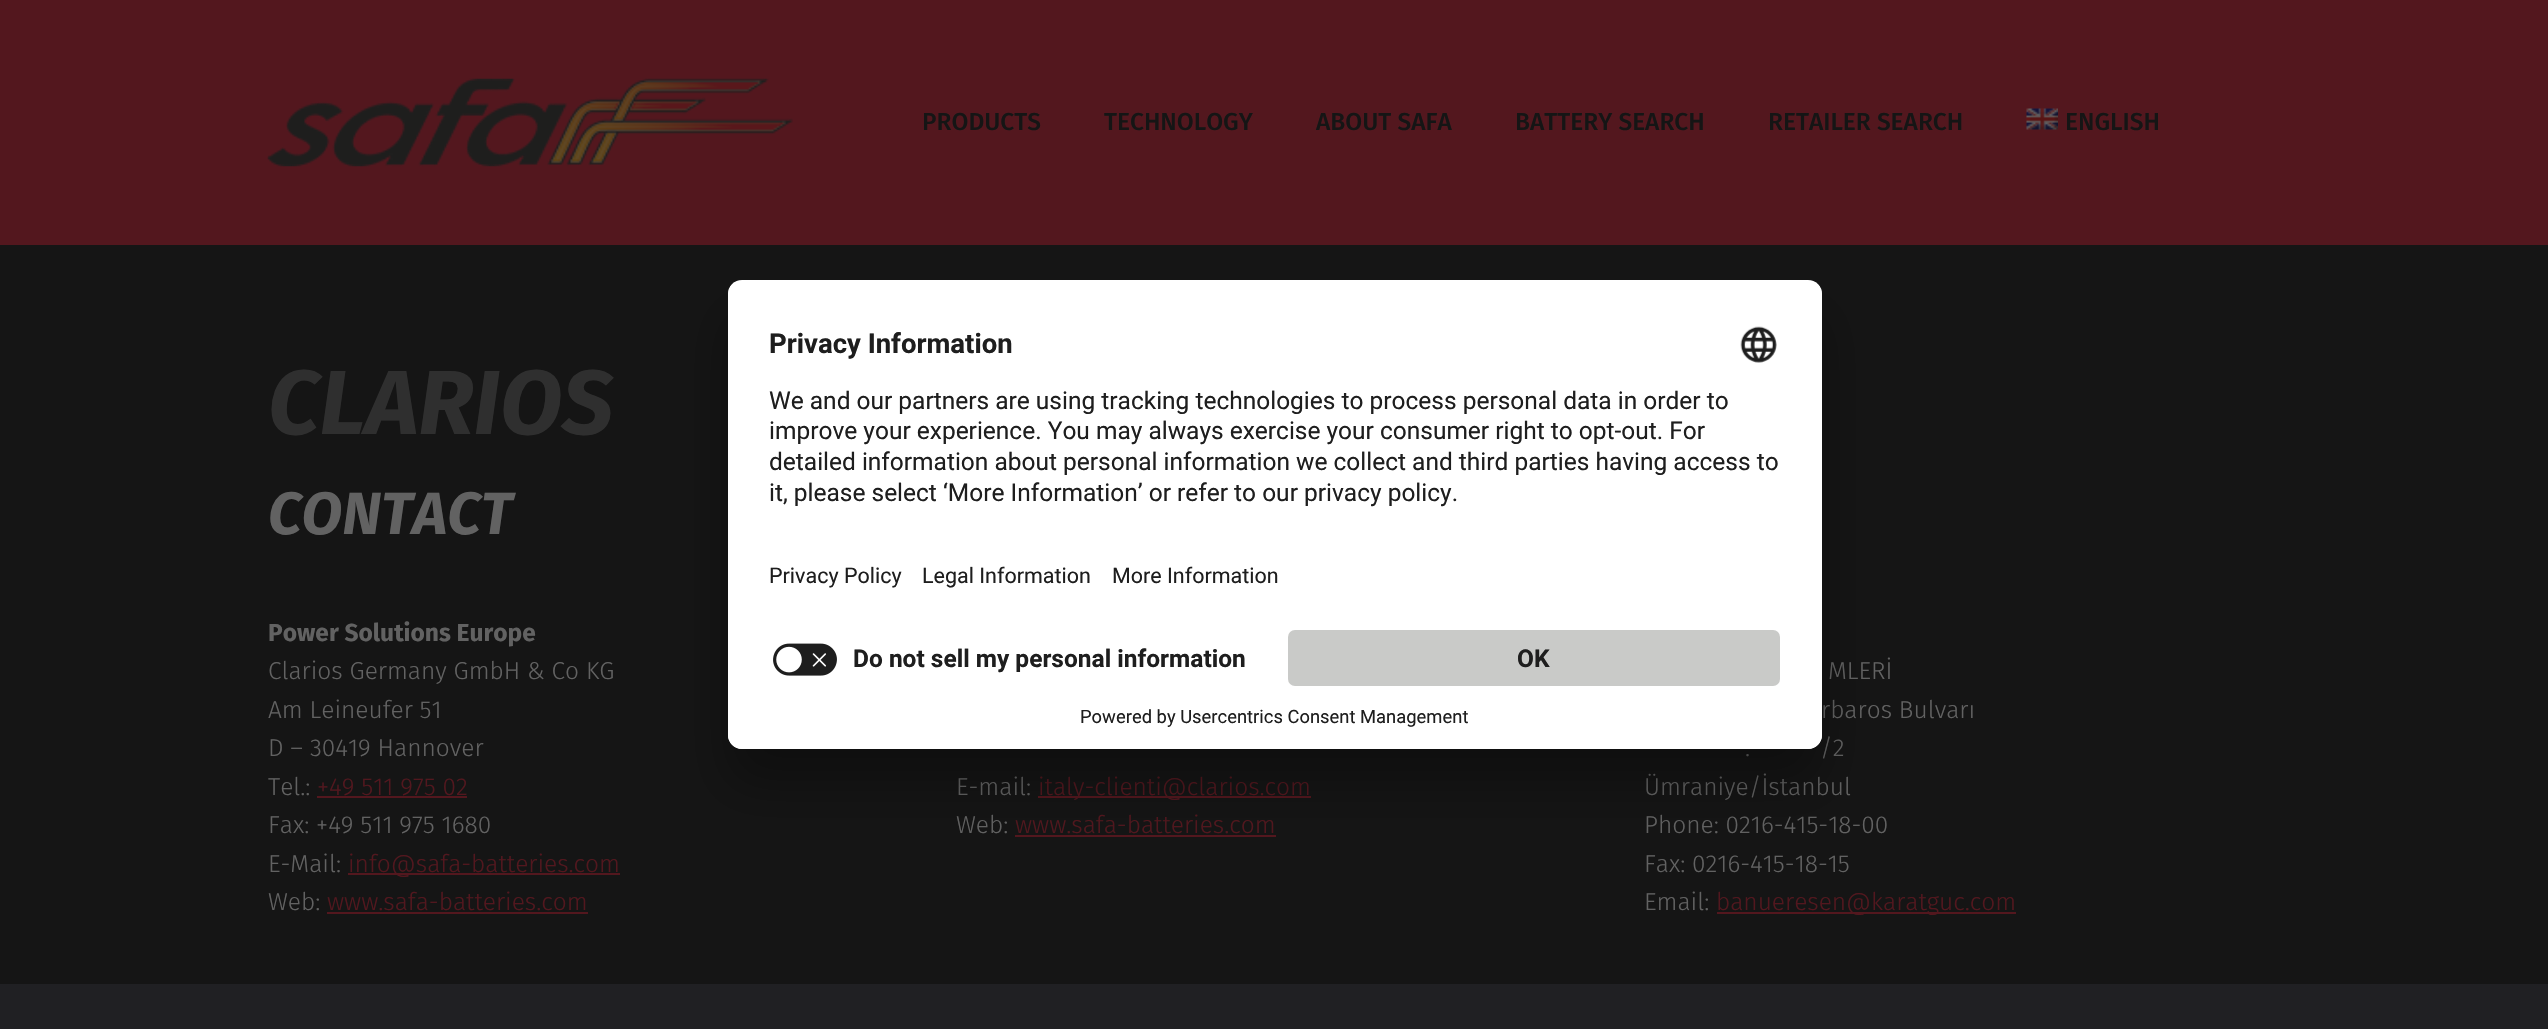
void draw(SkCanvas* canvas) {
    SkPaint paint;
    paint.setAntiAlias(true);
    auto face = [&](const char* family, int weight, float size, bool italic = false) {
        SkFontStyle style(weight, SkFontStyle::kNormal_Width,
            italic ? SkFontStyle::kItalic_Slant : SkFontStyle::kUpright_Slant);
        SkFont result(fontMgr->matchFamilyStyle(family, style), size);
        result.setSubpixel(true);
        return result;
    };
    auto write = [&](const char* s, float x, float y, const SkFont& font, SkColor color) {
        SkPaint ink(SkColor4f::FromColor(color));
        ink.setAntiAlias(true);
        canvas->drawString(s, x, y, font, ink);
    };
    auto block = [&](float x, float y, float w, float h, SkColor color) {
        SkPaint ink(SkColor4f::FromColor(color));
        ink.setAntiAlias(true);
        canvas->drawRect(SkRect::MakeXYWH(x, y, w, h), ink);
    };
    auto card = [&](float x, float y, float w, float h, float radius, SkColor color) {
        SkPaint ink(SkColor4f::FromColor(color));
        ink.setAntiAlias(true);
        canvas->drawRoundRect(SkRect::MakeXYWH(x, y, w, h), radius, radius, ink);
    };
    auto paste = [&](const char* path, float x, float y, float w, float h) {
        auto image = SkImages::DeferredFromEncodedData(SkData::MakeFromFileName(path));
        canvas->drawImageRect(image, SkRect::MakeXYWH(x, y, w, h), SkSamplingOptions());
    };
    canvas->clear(SkColorSetRGB(21, 21, 21));
    block(0, 0, 2548, 245, SkColorSetRGB(83, 23, 30));
    paste("pic1.png", 267, 78, 526, 89);
    auto kFont1 = face("Fira Sans", 500, 24.5f);
    write("PRODUCTS", 922, 130, kFont1, SkColorSetRGB(21, 21, 21));
    write("TECHNOLOGY", 1104, 130, kFont1, SkColorSetRGB(21, 21, 21));
    write("ABOUT SAFA", 1316, 130, kFont1, SkColorSetRGB(21, 21, 21));
    write("BATTERY SEARCH", 1515, 130, kFont1, SkColorSetRGB(21, 21, 21));
    write("RETAILER SEARCH", 1768, 130, kFont1, SkColorSetRGB(21, 21, 21));
    paste("pic2.png", 2026, 108, 32, 22);
    write("ENGLISH", 2065, 130, kFont1, SkColorSetRGB(21, 21, 21));
    auto kFont2 = face("Fira Sans", 700, 91, true);
    write("CLARIOS", 268, 434, kFont2, SkColorSetRGB(47, 47, 47));
    auto kFont3 = face("Fira Sans", 700, 59.5f, true);
    write("CONTACT", 268, 534, kFont3, SkColorSetRGB(98, 98, 98));
    auto kFont4 = face("Fira Sans", 700, 24.5f);
    write("Power Solutions Europe", 268, 641, kFont4, SkColorSetRGB(98, 98, 98));
    auto kFont5 = face("Fira Sans", 300, 24.5f);
    write("Clarios Germany GmbH & Co KG", 268, 679, kFont5, SkColorSetRGB(98, 98, 98));
    write("Am Leineufer 51", 268, 718, kFont5, SkColorSetRGB(98, 98, 98));
    write("D – 30419 Hannover", 268, 756, kFont5, SkColorSetRGB(98, 98, 98));
    write("Tel.:", 268, 795, kFont5, SkColorSetRGB(98, 98, 98));
    write("+49 511 975 02", 317, 795, kFont5, SkColorSetRGB(83, 23, 30));
    block(317, 796, 150, 2, SkColorSetRGB(83, 23, 30));
    write("Fax: +49 511 975 1680", 268, 833, kFont5, SkColorSetRGB(98, 98, 98));
    write("E-Mail:", 268, 872, kFont5, SkColorSetRGB(98, 98, 98));
    block(348, 873, 272, 2, SkColorSetRGB(83, 23, 30));
    write("info@safa-batteries.com", 348, 872, kFont5, SkColorSetRGB(83, 23, 30));
    write("Web:", 268, 910, kFont5, SkColorSetRGB(98, 98, 98));
    write("www.safa-batteries.com", 327, 910, kFont5, SkColorSetRGB(83, 23, 30));
    block(327, 912, 261, 2, SkColorSetRGB(83, 23, 30));
    write("E-mail:", 956, 795, kFont5, SkColorSetRGB(98, 98, 98));
    block(1038, 796, 273, 2, SkColorSetRGB(83, 23, 30));
    write("italy-clienti@clarios.com", 1038, 795, kFont5, SkColorSetRGB(83, 23, 30));
    write("Web:", 956, 833, kFont5, SkColorSetRGB(98, 98, 98));
    write("www.safa-batteries.com", 1015, 833, kFont5, SkColorSetRGB(83, 23, 30));
    block(1015, 835, 261, 2, SkColorSetRGB(83, 23, 30));
    write("MLERİ", 1828, 679, kFont5, SkColorSetRGB(98, 98, 98));
    write("rbaros Bulvarı", 1821, 718, kFont5, SkColorSetRGB(98, 98, 98));
    write(".", 1745, 756, kFont5, SkColorSetRGB(98, 98, 98));
    write("/2", 1820, 756, kFont5, SkColorSetRGB(98, 98, 98));
    write("Ümraniye/İstanbul", 1644, 795, kFont5, SkColorSetRGB(98, 98, 98));
    write("Phone: 0216-415-18-00", 1644, 833, kFont5, SkColorSetRGB(98, 98, 98));
    write("Fax: 0216-415-18-15", 1644, 872, kFont5, SkColorSetRGB(98, 98, 98));
    write("Email:", 1644, 910, kFont5, SkColorSetRGB(98, 98, 98));
    block(1717, 912, 299, 2, SkColorSetRGB(83, 23, 30));
    write("banueresen@karatguc.com", 1716, 910, kFont5, SkColorSetRGB(83, 23, 30));
    block(0, 984, 2548, 45, SkColorSetRGB(32, 32, 35));
    paint.setColor(SkColorSetARGB(77, 0, 0, 0));
    paint.setMaskFilter(SkMaskFilter::MakeBlur(kNormal_SkBlurStyle, 24.5f));
    canvas->drawRoundRect(SkRect::MakeXYWH(728, 315, 1094, 469), 14, 14, paint);
    paint.setMaskFilter(nullptr);
    card(728, 280, 1094, 469, 14, SK_ColorWHITE);
    canvas->save();
    canvas->clipPath(SkPathBuilder().moveTo(742, 280).lineTo(1808, 280).cubicTo(1815.5f, 280, 1822, 286.5f, 1822, 294).lineTo(1822, 735).cubicTo(1822, 742.5f, 1815.5f, 749, 1808, 749).lineTo(742, 749).cubicTo(734.5f, 749, 728, 742.5f, 728, 735).lineTo(728, 294).cubicTo(728, 286.5f, 734.5f, 280, 742, 280).close().detach(), true);
    canvas->clipPath(SkPathBuilder().moveTo(742, 280).lineTo(1808, 280).cubicTo(1815.5f, 280, 1822, 286.5f, 1822, 294).lineTo(1822, 616).lineTo(728, 616).lineTo(728, 294).cubicTo(728, 286.5f, 734.5f, 280, 742, 280).close().detach(), true);
    block(728, 282, 1094, 334, SK_ColorWHITE);
    canvas->restore();
    auto kFont6 = face("Roboto", 700, 27.5f);
    write("Privacy Information", 769, 353, kFont6, SkColorSetRGB(30, 30, 30));
    paste("pic3.png", 1740, 326, 37, 37);
    auto kFont7 = face("Roboto", 400, 24.5f);
    write("We and our partners are using tracking technologies to process personal data in order to", 769, 409, kFont7, SkColorSetRGB(30, 30, 30));
    write("improve your experience. You may always exercise your consumer right to opt-out. For", 769, 439, kFont7, SkColorSetRGB(30, 30, 30));
    write("detailed information about personal information we collect and third parties having access to", 769, 470, kFont7, SkColorSetRGB(30, 30, 30));
    write("it, please select ‘More Information’ or refer to our privacy policy.", 769, 501, kFont7, SkColorSetRGB(30, 30, 30));
    auto kFont8 = face("Roboto", 400, 21.5f);
    write("Privacy Policy", 769, 583, kFont8, SkColorSetRGB(30, 30, 30));
    write("Legal Information", 922, 583, kFont8, SkColorSetRGB(30, 30, 30));
    write("More Information", 1112, 583, kFont8, SkColorSetRGB(30, 30, 30));
    paint.setColor(SK_ColorWHITE);
    canvas->drawPath(SkPathBuilder().moveTo(728, 616).lineTo(1822, 616).lineTo(1822, 735).cubicTo(1822, 742.5f, 1815.5f, 749, 1808, 749).lineTo(742, 749).cubicTo(734.5f, 749, 728, 742.5f, 728, 735).close().detach(), paint);
    paste("pic4.png", 773, 643, 64, 33);
    auto kFont9 = face("Roboto", 700, 24.5f);
    write("Do not sell my personal information", 853, 667, kFont9, SkColorSetRGB(30, 30, 30));
    card(1288, 630, 492, 56, 7, SkColorSetRGB(201, 202, 200));
    write("OK", 1517, 667, kFont9, SkColorSetRGB(30, 30, 30));
    auto kFont10 = face("Roboto", 400, 18.4f);
    write("Powered by Usercentrics Consent Management", 1080, 723, kFont10, SkColorSetRGB(30, 30, 30));
}
